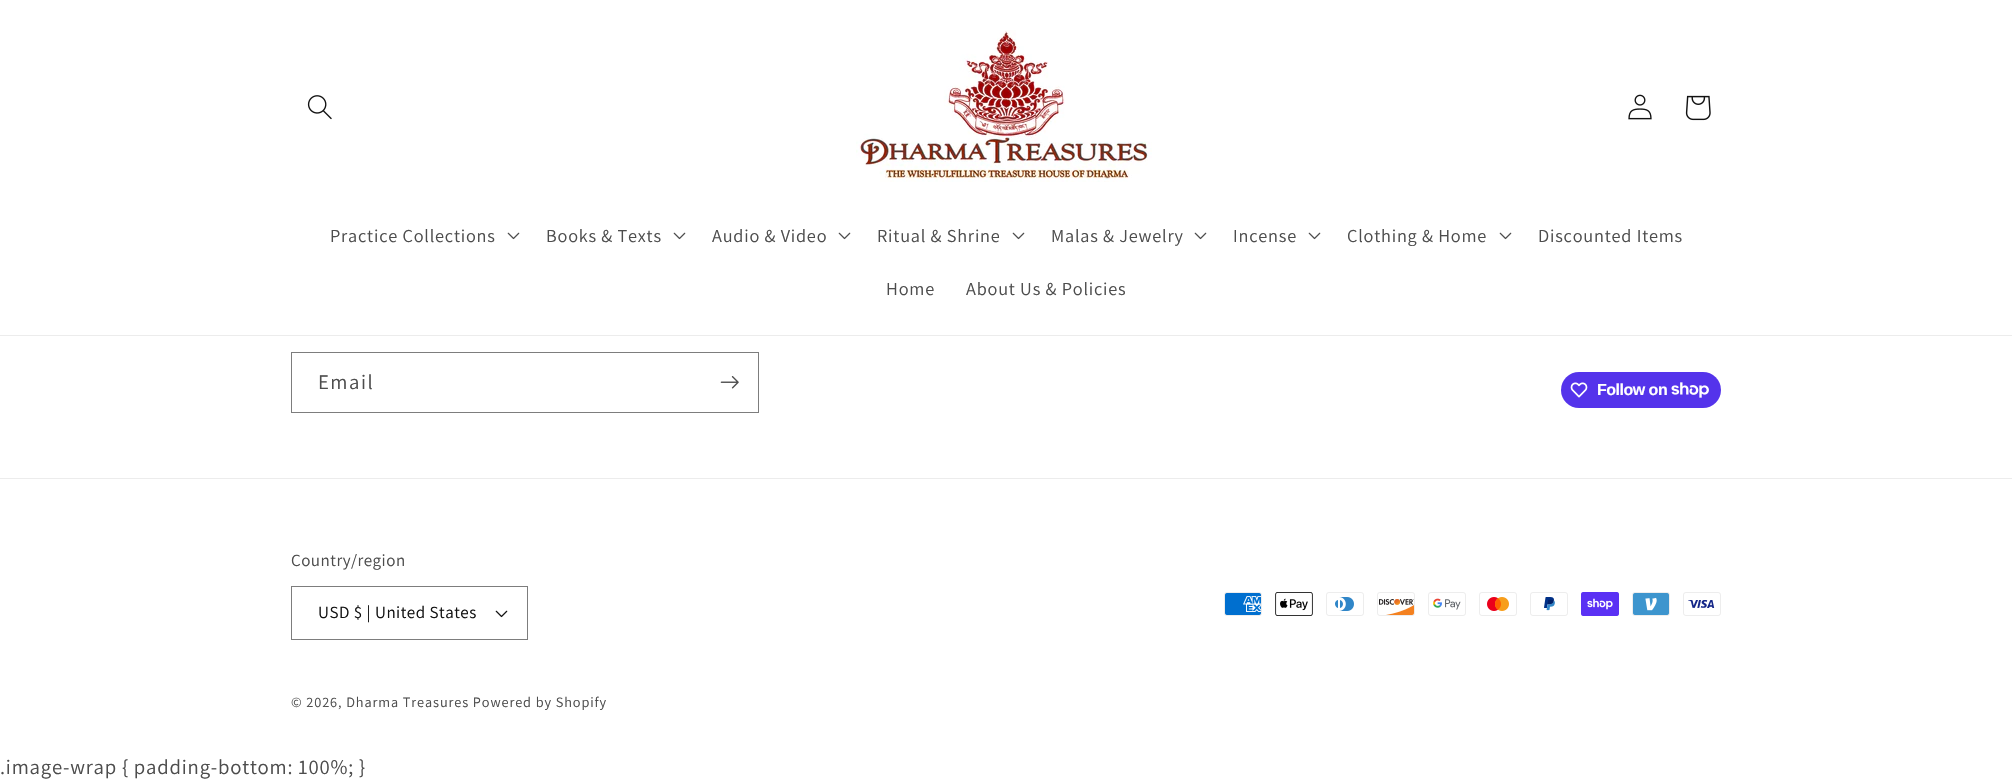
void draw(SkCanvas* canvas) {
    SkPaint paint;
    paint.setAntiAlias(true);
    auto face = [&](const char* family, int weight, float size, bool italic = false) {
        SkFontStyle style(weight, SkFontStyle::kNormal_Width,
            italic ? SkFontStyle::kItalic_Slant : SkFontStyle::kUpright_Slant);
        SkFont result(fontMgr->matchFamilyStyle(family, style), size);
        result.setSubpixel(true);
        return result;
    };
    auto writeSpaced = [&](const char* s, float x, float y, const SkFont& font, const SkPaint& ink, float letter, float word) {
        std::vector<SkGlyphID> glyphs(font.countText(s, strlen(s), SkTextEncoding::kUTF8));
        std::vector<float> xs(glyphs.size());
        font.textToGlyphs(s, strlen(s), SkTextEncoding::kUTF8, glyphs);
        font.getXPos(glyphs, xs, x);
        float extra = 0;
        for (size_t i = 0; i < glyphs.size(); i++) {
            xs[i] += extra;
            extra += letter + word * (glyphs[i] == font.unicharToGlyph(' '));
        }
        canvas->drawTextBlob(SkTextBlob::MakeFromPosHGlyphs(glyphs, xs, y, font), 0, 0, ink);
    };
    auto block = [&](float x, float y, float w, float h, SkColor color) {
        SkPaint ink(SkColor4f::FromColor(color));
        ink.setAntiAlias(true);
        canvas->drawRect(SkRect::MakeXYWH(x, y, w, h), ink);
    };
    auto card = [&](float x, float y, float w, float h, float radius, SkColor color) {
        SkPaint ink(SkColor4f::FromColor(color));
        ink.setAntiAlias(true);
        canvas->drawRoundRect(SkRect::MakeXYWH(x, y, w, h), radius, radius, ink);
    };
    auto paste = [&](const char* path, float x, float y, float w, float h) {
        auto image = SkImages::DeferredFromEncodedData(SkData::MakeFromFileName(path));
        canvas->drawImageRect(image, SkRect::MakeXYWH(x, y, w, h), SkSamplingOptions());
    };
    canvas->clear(SK_ColorWHITE);
    block(0, 335, 2012, 1, SkColorSetRGB(236, 236, 236));
    paste("pic1.png", 307, 95, 25, 25);
    paste("pic2.png", 856, 30, 296, 152);
    paste("pic3.png", 1628, 94, 24, 26);
    paste("pic4.png", 1685, 95, 26, 26);
    auto kFont1 = face("Assistant", 400, 18.25f);
    paint.setColor(SkColorSetRGB(77, 77, 77));
    writeSpaced("Practice Collections", 330, 242, kFont1, paint, 0.8f, 0);
    paste("pic5.png", 507, 232, 13, 8);
    writeSpaced("Books & Texts", 546, 242, kFont1, paint, 0.8f, 0);
    paste("pic5.png", 673, 232, 13, 8);
    writeSpaced("Audio & Video", 712, 242, kFont1, paint, 0.8f, 0);
    paste("pic5.png", 838, 232, 13, 8);
    writeSpaced("Ritual & Shrine", 877, 242, kFont1, paint, 0.8f, 0);
    paste("pic5.png", 1012, 232, 13, 8);
    writeSpaced("Malas & Jewelry", 1051, 242, kFont1, paint, 0.8f, 0);
    paste("pic5.png", 1194, 232, 13, 8);
    writeSpaced("Incense", 1233, 242, kFont1, paint, 0.8f, 0);
    paste("pic5.png", 1308, 232, 13, 8);
    writeSpaced("Clothing & Home", 1347, 242, kFont1, paint, 0.8f, 0);
    paste("pic5.png", 1499, 232, 13, 8);
    writeSpaced("Discounted Items", 1538, 242, kFont1, paint, 0.8f, 0);
    writeSpaced("Home", 886, 295, kFont1, paint, 0.8f, 0);
    writeSpaced("About Us & Policies", 966, 295, kFont1, paint, 0.8f, 0);
    paint.setStyle(SkPaint::kStroke_Style);
    paint.setStrokeWidth(1);
    paint.setColor(SkColorSetRGB(125, 125, 125));
    canvas->drawRect(SkRect::MakeXYWH(291.5f, 352.5f, 467, 60), paint);
    auto kFont2 = face("Assistant", 400, 20.75f);
    paint.setStyle(SkPaint::kFill_Style);
    paint.setColor(SkColorSetRGB(77, 77, 77));
    writeSpaced("Email", 318, 389, kFont2, paint, 1.5f, 0);
    paste("pic6.png", 720, 376, 19, 13);
    card(1561, 372, 160, 36, 18, SkColorSetRGB(84, 51, 235));
    paste("pic7.png", 1570, 382, 18, 16);
    auto kFont3 = face("Liberation Sans", 700, 16);
    paint.setColor(SK_ColorWHITE);
    writeSpaced("Follow on", 1597, 395, kFont3, paint, -0.5f, 0);
    paste("pic8.png", 1671, 382, 38, 16);
    block(0, 478, 2012, 1, SkColorSetRGB(236, 236, 236));
    auto kFont4 = face("Assistant", 400, 17);
    paint.setColor(SkColorSetRGB(77, 77, 77));
    writeSpaced("Country/region", 291, 566, kFont4, paint, 0.5f, 0);
    paste("pic9.png", 495, 610, 13, 8);
    paint.setStyle(SkPaint::kStroke_Style);
    paint.setColor(SkColorSetRGB(125, 125, 125));
    canvas->drawRect(SkRect::MakeXYWH(291.5f, 586.5f, 236, 53), paint);
    paint.setStyle(SkPaint::kFill_Style);
    paint.setColor(SkColorSetRGB(18, 18, 18));
    writeSpaced("USD $ | United States", 318, 618, kFont4, paint, 0.5f, 0);
    paste("pic10.png", 1224, 592, 38, 24);
    paste("pic11.png", 1275, 592, 38, 24);
    paste("pic12.png", 1326, 592, 38, 24);
    paste("pic13.png", 1377, 592, 38, 24);
    paste("pic14.png", 1428, 592, 38, 24);
    paste("pic15.png", 1479, 592, 38, 24);
    paste("pic16.png", 1530, 592, 38, 24);
    paste("pic17.png", 1581, 592, 38, 24);
    paste("pic18.png", 1632, 592, 38, 24);
    paste("pic19.png", 1683, 592, 38, 24);
    auto kFont5 = face("Assistant", 400, 14.3f);
    paint.setColor(SkColorSetRGB(77, 77, 77));
    writeSpaced("© 2026, Dharma Treasures Powered by Shopify", 291, 707, kFont5, paint, 0.9f, 0);
    writeSpaced(".image-wrap { padding-bottom: 100%; }", 0, 774, kFont2, paint, 0.8f, 0);
}
